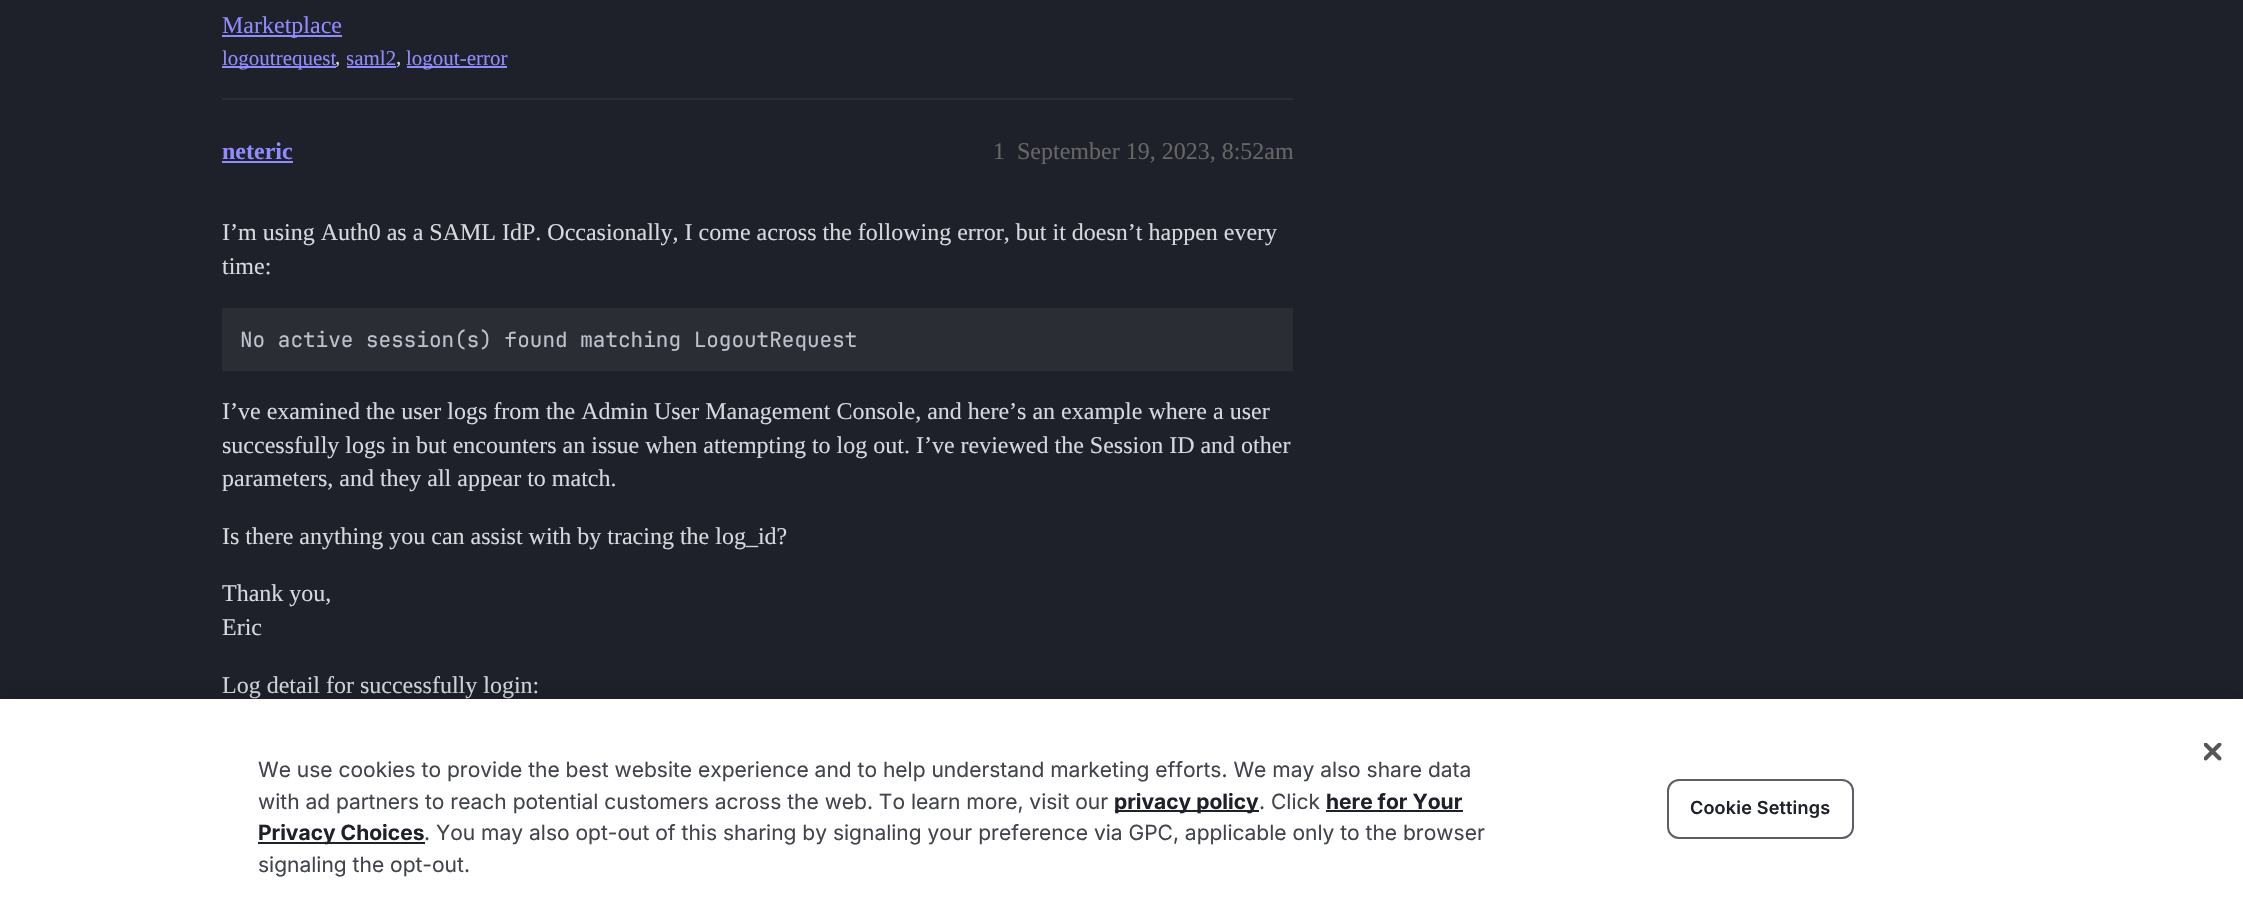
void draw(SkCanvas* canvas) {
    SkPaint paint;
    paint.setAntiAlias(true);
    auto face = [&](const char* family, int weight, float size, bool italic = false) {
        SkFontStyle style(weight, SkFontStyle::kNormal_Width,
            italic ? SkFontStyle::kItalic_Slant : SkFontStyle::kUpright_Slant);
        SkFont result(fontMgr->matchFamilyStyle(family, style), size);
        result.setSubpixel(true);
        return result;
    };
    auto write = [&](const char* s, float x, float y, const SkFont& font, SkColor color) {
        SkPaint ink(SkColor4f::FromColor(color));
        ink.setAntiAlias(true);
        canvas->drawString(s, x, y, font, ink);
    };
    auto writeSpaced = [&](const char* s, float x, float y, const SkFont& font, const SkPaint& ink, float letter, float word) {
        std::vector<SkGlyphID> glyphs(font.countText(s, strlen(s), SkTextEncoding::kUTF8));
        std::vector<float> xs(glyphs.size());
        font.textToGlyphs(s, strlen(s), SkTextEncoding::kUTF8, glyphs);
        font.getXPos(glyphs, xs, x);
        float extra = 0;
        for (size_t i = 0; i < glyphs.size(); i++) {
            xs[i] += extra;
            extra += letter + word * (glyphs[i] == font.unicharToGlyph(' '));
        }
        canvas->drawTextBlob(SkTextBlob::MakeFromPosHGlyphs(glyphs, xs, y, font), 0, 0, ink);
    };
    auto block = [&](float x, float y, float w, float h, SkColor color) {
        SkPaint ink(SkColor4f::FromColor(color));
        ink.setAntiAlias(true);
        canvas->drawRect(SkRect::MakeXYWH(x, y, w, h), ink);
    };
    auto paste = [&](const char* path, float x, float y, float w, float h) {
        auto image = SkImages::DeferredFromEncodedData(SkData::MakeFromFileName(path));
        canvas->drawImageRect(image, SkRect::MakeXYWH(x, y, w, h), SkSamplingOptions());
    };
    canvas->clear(SkColorSetRGB(30, 33, 42));
    block(222, 35, 120, 2, SkColorSetRGB(144, 139, 255));
    auto kFont1 = face("Liberation Serif", 400, 24);
    write("Marketplace", 222, 33, kFont1, SkColorSetRGB(144, 139, 255));
    block(222, 66, 114, 2, SkColorSetRGB(144, 139, 255));
    auto kFont2 = face("Liberation Serif", 400, 21);
    write("logoutrequest", 222, 65, kFont2, SkColorSetRGB(144, 139, 255));
    write(",", 335, 64, kFont2, SkColorSetRGB(214, 216, 222));
    canvas->save();
    canvas->clipRect(SkRect::MakeXYWH(347, 44, 49, 30));
    write("saml2", 346, 65, kFont2, SkColorSetRGB(144, 139, 255));
    canvas->restore();
    block(347, 66, 49, 2, SkColorSetRGB(144, 139, 255));
    write(",", 396, 64, kFont2, SkColorSetRGB(214, 216, 222));
    block(407, 66, 100, 2, SkColorSetRGB(144, 139, 255));
    write("logout-error", 406, 65, kFont2, SkColorSetRGB(144, 139, 255));
    block(222, 98, 1071, 2, SkColorSetRGB(43, 45, 53));
    auto kFont3 = face("Liberation Serif", 700, 24);
    write("neteric", 222, 159, kFont3, SkColorSetRGB(144, 139, 255));
    block(222, 161, 71, 2, SkColorSetRGB(144, 139, 255));
    write("1", 993, 159, kFont1, SkColorSetRGB(102, 102, 102));
    write("September 19, 2023, 8:52am", 1017, 159, kFont1, SkColorSetRGB(102, 102, 102));
    write("I’m using Auth0 as a SAML IdP. Occasionally, I come across the following error, but it doesn’t happen every", 222, 240, kFont1, SkColorSetRGB(214, 216, 222));
    write("time:", 222, 274, kFont1, SkColorSetRGB(214, 216, 222));
    block(222, 308, 1071, 63, SkColorSetRGB(43, 45, 53));
    auto kFont4 = face("JetBrains Mono", 400, 21);
    write("No active session(s) found matching LogoutRequest", 240, 347, kFont4, SkColorSetRGB(190, 193, 203));
    write("I’ve examined the user logs from the Admin User Management Console, and here’s an example where a user", 222, 419, kFont1, SkColorSetRGB(214, 216, 222));
    write("successfully logs in but encounters an issue when attempting to log out. I’ve reviewed the Session ID and other", 222, 453, kFont1, SkColorSetRGB(214, 216, 222));
    write("parameters, and they all appear to match.", 222, 486, kFont1, SkColorSetRGB(214, 216, 222));
    write("Is there anything you can assist with by tracing the log_id?", 222, 544, kFont1, SkColorSetRGB(214, 216, 222));
    write("Thank you,", 222, 601, kFont1, SkColorSetRGB(214, 216, 222));
    write("Eric", 222, 635, kFont1, SkColorSetRGB(214, 216, 222));
    write("Log detail for successfully login:", 222, 693, kFont1, SkColorSetRGB(214, 216, 222));
    paint.setColor(SkColorSetARGB(51, 0, 0, 0));
    paint.setMaskFilter(SkMaskFilter::MakeBlur(kNormal_SkBlurStyle, 13.5f));
    canvas->drawRect(SkRect::MakeXYWH(0, 699, 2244, 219), paint);
    paint.setMaskFilter(nullptr);
    block(0, 699, 2243, 218, SK_ColorWHITE);
    paste("pic1.png", 2204, 743, 18, 18);
    auto kFont5 = face("Inter", 400, 21);
    write("We use cookies to provide the best website experience and to help understand marketing efforts. We may also share data", 258, 777, kFont5, SkColorSetRGB(65, 68, 75));
    write("with ad partners to reach potential customers across the web. To learn more, visit our", 258, 809, kFont5, SkColorSetRGB(65, 68, 75));
    block(1115, 810, 144, 2, SkColorSetRGB(30, 33, 42));
    auto kFont6 = face("Inter", 700, 21);
    write("privacy policy", 1114, 809, kFont6, SkColorSetRGB(30, 33, 42));
    write(". Click", 1259, 809, kFont5, SkColorSetRGB(65, 68, 75));
    write("here for Your", 1326, 809, kFont6, SkColorSetRGB(30, 33, 42));
    block(1326, 810, 137, 2, SkColorSetRGB(30, 33, 42));
    block(258, 842, 167, 2, SkColorSetRGB(30, 33, 42));
    write("Privacy Choices", 258, 840, kFont6, SkColorSetRGB(30, 33, 42));
    write(". You may also opt-out of this sharing by signaling your preference via GPC, applicable only to the browser", 424, 840, kFont5, SkColorSetRGB(65, 68, 75));
    write("signaling the opt-out.", 258, 872, kFont5, SkColorSetRGB(65, 68, 75));
    paint.setStyle(SkPaint::kStroke_Style);
    paint.setStrokeWidth(2);
    paint.setColor(SkColorSetRGB(90, 95, 102));
    canvas->drawRoundRect(SkRect::MakeXYWH(1668, 780, 185, 58), 11, 11, paint);
    auto kFont7 = face("Inter", 600, 18);
    paint.setStyle(SkPaint::kFill_Style);
    paint.setColor(SkColorSetRGB(30, 33, 42));
    writeSpaced("Cookie Settings", 1690, 814, kFont7, paint, 0.2f, 0);
}
